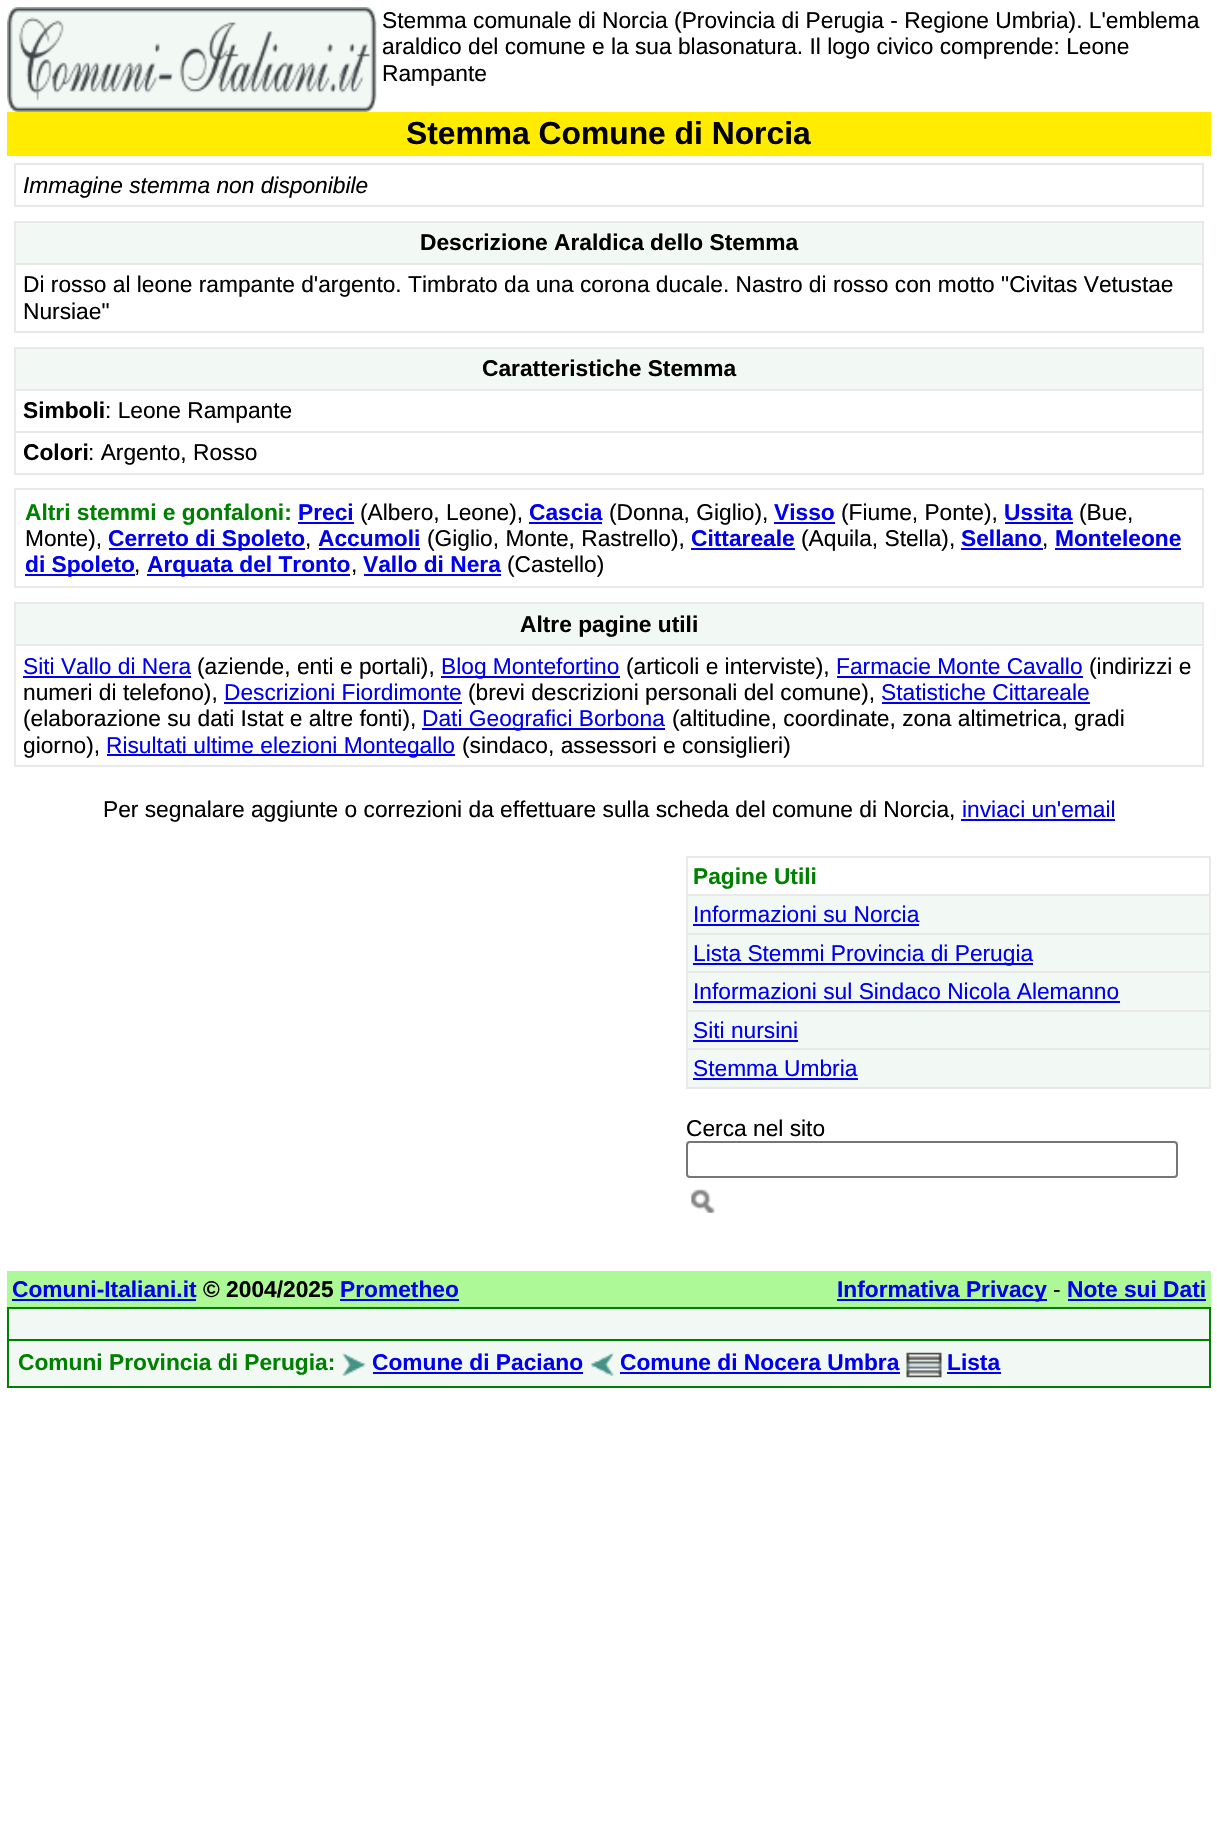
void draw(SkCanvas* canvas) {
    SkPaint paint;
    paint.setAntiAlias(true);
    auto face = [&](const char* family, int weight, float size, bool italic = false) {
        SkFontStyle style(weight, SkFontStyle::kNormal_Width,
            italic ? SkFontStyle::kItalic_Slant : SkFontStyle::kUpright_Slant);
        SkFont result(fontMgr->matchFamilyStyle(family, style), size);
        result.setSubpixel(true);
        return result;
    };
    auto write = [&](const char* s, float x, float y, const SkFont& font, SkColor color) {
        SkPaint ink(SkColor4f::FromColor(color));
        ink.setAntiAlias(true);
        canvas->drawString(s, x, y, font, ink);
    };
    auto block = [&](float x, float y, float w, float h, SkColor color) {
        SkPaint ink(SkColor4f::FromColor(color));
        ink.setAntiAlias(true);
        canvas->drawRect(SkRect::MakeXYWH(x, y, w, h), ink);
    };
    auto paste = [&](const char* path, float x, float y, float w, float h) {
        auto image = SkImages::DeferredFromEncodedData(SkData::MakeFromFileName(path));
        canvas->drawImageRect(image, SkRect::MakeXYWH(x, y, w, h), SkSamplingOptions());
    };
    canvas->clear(SK_ColorWHITE);
    paste("pic1.png", 7, 7, 370, 105);
    auto kFont1 = face("Liberation Sans", 400, 22.75f);
    write("Stemma comunale di Norcia (Provincia di Perugia - Regione Umbria). L'emblema", 382, 28, kFont1, SK_ColorBLACK);
    write("araldico del comune e la sua blasonatura. Il logo civico comprende: Leone", 382, 54, kFont1, SK_ColorBLACK);
    write("Rampante", 382, 81, kFont1, SK_ColorBLACK);
    block(7, 112, 1204, 44, SkColorSetRGB(255, 236, 0));
    auto kFont2 = face("Liberation Sans", 700, 31.8f);
    write("Stemma Comune di Norcia", 406, 144, kFont2, SK_ColorBLACK);
    block(14, 163, 1190, 2, SkColorSetRGB(233, 233, 233));
    block(1202, 163, 2, 44, SkColorSetRGB(233, 233, 233));
    block(14, 205, 1190, 2, SkColorSetRGB(233, 233, 233));
    block(14, 163, 2, 44, SkColorSetRGB(233, 233, 233));
    auto kFont3 = face("Liberation Sans", 400, 22.75f, true);
    write("Immagine stemma non disponibile", 23, 193, kFont3, SK_ColorBLACK);
    block(14, 221, 1190, 2, SkColorSetRGB(233, 233, 233));
    block(1202, 221, 2, 112, SkColorSetRGB(233, 233, 233));
    block(14, 331, 1190, 2, SkColorSetRGB(233, 233, 233));
    block(14, 221, 2, 112, SkColorSetRGB(233, 233, 233));
    block(16, 223, 1186, 40, SkColorSetRGB(242, 248, 244));
    auto kFont4 = face("Liberation Sans", 700, 22.75f);
    write("Descrizione Araldica dello Stemma", 420, 250, kFont4, SK_ColorBLACK);
    block(14, 263, 1190, 2, SkColorSetRGB(233, 233, 233));
    write("Di rosso al leone rampante d'argento. Timbrato da una corona ducale. Nastro di rosso con motto \"Civitas Vetustae", 23, 292, kFont1, SK_ColorBLACK);
    write("Nursiae\"", 23, 319, kFont1, SK_ColorBLACK);
    block(14, 347, 1190, 2, SkColorSetRGB(233, 233, 233));
    block(1202, 347, 2, 127, SkColorSetRGB(233, 233, 233));
    block(14, 473, 1190, 2, SkColorSetRGB(233, 233, 233));
    block(14, 347, 2, 127, SkColorSetRGB(233, 233, 233));
    block(16, 349, 1186, 40, SkColorSetRGB(242, 248, 244));
    write("Caratteristiche Stemma", 482, 376, kFont4, SK_ColorBLACK);
    block(14, 389, 1190, 2, SkColorSetRGB(233, 233, 233));
    write("Simboli", 23, 418, kFont4, SK_ColorBLACK);
    write(": Leone Rampante", 105, 418, kFont1, SK_ColorBLACK);
    block(14, 431, 1190, 2, SkColorSetRGB(233, 233, 233));
    write("Colori", 23, 460, kFont4, SK_ColorBLACK);
    write(": Argento, Rosso", 88, 460, kFont1, SK_ColorBLACK);
    block(14, 488, 1190, 2, SkColorSetRGB(233, 233, 233));
    block(1202, 488, 2, 100, SkColorSetRGB(233, 233, 233));
    block(14, 586, 1190, 2, SkColorSetRGB(233, 233, 233));
    block(14, 488, 2, 100, SkColorSetRGB(233, 233, 233));
    write("Altri stemmi e gonfaloni:", 25, 520, kFont4, SkColorSetRGB(0, 128, 0));
    write("Preci", 298, 520, kFont4, SkColorSetRGB(0, 0, 238));
    block(298, 522, 56, 2, SkColorSetRGB(0, 0, 238));
    write("(Albero, Leone),", 360, 520, kFont1, SK_ColorBLACK);
    write("Cascia", 529, 520, kFont4, SkColorSetRGB(0, 0, 238));
    block(529, 522, 73, 2, SkColorSetRGB(0, 0, 238));
    write("(Donna, Giglio),", 609, 520, kFont1, SK_ColorBLACK);
    write("Visso", 774, 520, kFont4, SkColorSetRGB(0, 0, 238));
    block(774, 522, 61, 2, SkColorSetRGB(0, 0, 238));
    write("(Fiume, Ponte),", 841, 520, kFont1, SK_ColorBLACK);
    write("Ussita", 1004, 520, kFont4, SkColorSetRGB(0, 0, 238));
    block(1005, 522, 68, 2, SkColorSetRGB(0, 0, 238));
    write("(Bue,", 1079, 520, kFont1, SK_ColorBLACK);
    write("Monte),", 25, 546, kFont1, SK_ColorBLACK);
    block(109, 548, 196, 2, SkColorSetRGB(0, 0, 238));
    write("Cerreto di Spoleto", 108, 546, kFont4, SkColorSetRGB(0, 0, 238));
    write(",", 305, 546, kFont1, SK_ColorBLACK);
    write("Accumoli", 318, 546, kFont4, SkColorSetRGB(0, 0, 238));
    block(319, 548, 101, 2, SkColorSetRGB(0, 0, 238));
    write("(Giglio, Monte, Rastrello),", 427, 546, kFont1, SK_ColorBLACK);
    write("Cittareale", 691, 546, kFont4, SkColorSetRGB(0, 0, 238));
    block(691, 548, 104, 2, SkColorSetRGB(0, 0, 238));
    write("(Aquila, Stella),", 801, 546, kFont1, SK_ColorBLACK);
    write("Sellano", 961, 546, kFont4, SkColorSetRGB(0, 0, 238));
    block(961, 548, 82, 2, SkColorSetRGB(0, 0, 238));
    write(",", 1042, 546, kFont1, SK_ColorBLACK);
    write("Monteleone", 1055, 546, kFont4, SkColorSetRGB(0, 0, 238));
    block(1055, 548, 126, 2, SkColorSetRGB(0, 0, 238));
    block(25, 574, 110, 2, SkColorSetRGB(0, 0, 238));
    write("di Spoleto", 25, 572, kFont4, SkColorSetRGB(0, 0, 238));
    write(",", 134, 572, kFont1, SK_ColorBLACK);
    block(147, 574, 203, 2, SkColorSetRGB(0, 0, 238));
    write("Arquata del Tronto", 147, 572, kFont4, SkColorSetRGB(0, 0, 238));
    write(",", 351, 572, kFont1, SK_ColorBLACK);
    write("Vallo di Nera", 363, 572, kFont4, SkColorSetRGB(0, 0, 238));
    block(364, 574, 137, 2, SkColorSetRGB(0, 0, 238));
    write("(Castello)", 507, 572, kFont1, SK_ColorBLACK);
    block(14, 602, 1190, 2, SkColorSetRGB(233, 233, 233));
    block(1202, 602, 2, 165, SkColorSetRGB(233, 233, 233));
    block(14, 765, 1190, 2, SkColorSetRGB(233, 233, 233));
    block(14, 602, 2, 165, SkColorSetRGB(233, 233, 233));
    block(16, 604, 1186, 40, SkColorSetRGB(242, 248, 244));
    write("Altre pagine utili", 520, 632, kFont4, SK_ColorBLACK);
    block(14, 644, 1190, 2, SkColorSetRGB(233, 233, 233));
    write("Siti Vallo di Nera", 23, 674, kFont1, SkColorSetRGB(0, 0, 238));
    block(23, 676, 168, 2, SkColorSetRGB(0, 0, 238));
    write("(aziende, enti e portali),", 197, 674, kFont1, SK_ColorBLACK);
    block(441, 676, 179, 2, SkColorSetRGB(0, 0, 238));
    write("Blog Montefortino", 441, 674, kFont1, SkColorSetRGB(0, 0, 238));
    write("(articoli e interviste),", 626, 674, kFont1, SK_ColorBLACK);
    write("Farmacie Monte Cavallo", 836, 674, kFont1, SkColorSetRGB(0, 0, 238));
    block(837, 676, 246, 2, SkColorSetRGB(0, 0, 238));
    write("(indirizzi e", 1089, 674, kFont1, SK_ColorBLACK);
    write("numeri di telefono),", 23, 700, kFont1, SK_ColorBLACK);
    write("Descrizioni Fiordimonte", 224, 700, kFont1, SkColorSetRGB(0, 0, 238));
    block(224, 702, 238, 2, SkColorSetRGB(0, 0, 238));
    write("(brevi descrizioni personali del comune),", 468, 700, kFont1, SK_ColorBLACK);
    write("Statistiche Cittareale", 881, 700, kFont1, SkColorSetRGB(0, 0, 238));
    block(882, 702, 208, 2, SkColorSetRGB(0, 0, 238));
    write("(elaborazione su dati Istat e altre fonti),", 23, 726, kFont1, SK_ColorBLACK);
    block(422, 728, 243, 2, SkColorSetRGB(0, 0, 238));
    write("Dati Geografici Borbona", 422, 726, kFont1, SkColorSetRGB(0, 0, 238));
    write("(altitudine, coordinate, zona altimetrica, gradi", 672, 726, kFont1, SK_ColorBLACK);
    write("giorno),", 23, 753, kFont1, SK_ColorBLACK);
    block(107, 754, 348, 2, SkColorSetRGB(0, 0, 238));
    write("Risultati ultime elezioni Montegallo", 106, 753, kFont1, SkColorSetRGB(0, 0, 238));
    write("(sindaco, assessori e consiglieri)", 462, 753, kFont1, SK_ColorBLACK);
    write("Per segnalare aggiunte o correzioni da effettuare sulla scheda del comune di Norcia,", 103, 817, kFont1, SK_ColorBLACK);
    write("inviaci un'email", 962, 817, kFont1, SkColorSetRGB(0, 0, 238));
    block(961, 819, 154, 2, SkColorSetRGB(0, 0, 238));
    block(688, 896, 521, 191, SkColorSetRGB(242, 248, 244));
    block(686, 856, 525, 2, SkColorSetRGB(233, 233, 233));
    block(1209, 856, 2, 233, SkColorSetRGB(233, 233, 233));
    block(686, 1087, 525, 2, SkColorSetRGB(233, 233, 233));
    block(686, 856, 2, 233, SkColorSetRGB(233, 233, 233));
    write("Pagine Utili", 693, 884, kFont4, SkColorSetRGB(0, 128, 0));
    block(686, 894, 525, 2, SkColorSetRGB(233, 233, 233));
    write("Informazioni su Norcia", 693, 922, kFont1, SkColorSetRGB(0, 0, 238));
    block(693, 924, 226, 2, SkColorSetRGB(0, 0, 238));
    block(686, 933, 525, 2, SkColorSetRGB(233, 233, 233));
    block(693, 963, 340, 2, SkColorSetRGB(0, 0, 238));
    write("Lista Stemmi Provincia di Perugia", 693, 961, kFont1, SkColorSetRGB(0, 0, 238));
    block(686, 971, 525, 2, SkColorSetRGB(233, 233, 233));
    write("Informazioni sul Sindaco Nicola Alemanno", 693, 999, kFont1, SkColorSetRGB(0, 0, 238));
    block(693, 1001, 427, 2, SkColorSetRGB(0, 0, 238));
    block(686, 1010, 525, 2, SkColorSetRGB(233, 233, 233));
    write("Siti nursini", 693, 1038, kFont1, SkColorSetRGB(0, 0, 238));
    block(693, 1040, 105, 2, SkColorSetRGB(0, 0, 238));
    block(686, 1048, 525, 2, SkColorSetRGB(233, 233, 233));
    write("Stemma Umbria", 693, 1076, kFont1, SkColorSetRGB(0, 0, 238));
    block(693, 1078, 165, 2, SkColorSetRGB(0, 0, 238));
    write("Cerca nel sito", 686, 1136, kFont1, SK_ColorBLACK);
    paint.setStyle(SkPaint::kStroke_Style);
    paint.setStrokeWidth(2);
    paint.setColor(SkColorSetRGB(118, 118, 118));
    canvas->drawRoundRect(SkRect::MakeXYWH(687, 1142, 490, 35), 3, 3, paint);
    paste("pic2.png", 690, 1189, 25, 24);
    block(7, 1271, 1204, 36, SkColorSetRGB(173, 249, 151));
    write("Comuni-Italiani.it", 12, 1297, kFont4, SkColorSetRGB(0, 0, 238));
    block(12, 1299, 184, 2, SkColorSetRGB(0, 0, 238));
    write("© 2004/2025", 203, 1297, kFont4, SK_ColorBLACK);
    write("Prometheo", 340, 1297, kFont4, SkColorSetRGB(0, 0, 238));
    block(340, 1299, 119, 2, SkColorSetRGB(0, 0, 238));
    block(837, 1299, 210, 2, SkColorSetRGB(0, 0, 238));
    write("Informativa Privacy", 837, 1297, kFont4, SkColorSetRGB(0, 0, 238));
    write("-", 1053, 1297, kFont1, SK_ColorBLACK);
    write("Note sui Dati", 1067, 1297, kFont4, SkColorSetRGB(0, 0, 238));
    block(1068, 1299, 138, 2, SkColorSetRGB(0, 0, 238));
    block(9, 1309, 1200, 77, SkColorSetRGB(242, 248, 244));
    block(7, 1307, 1204, 2, SkColorSetRGB(0, 128, 0));
    block(1209, 1307, 2, 81, SkColorSetRGB(0, 128, 0));
    block(7, 1386, 1204, 2, SkColorSetRGB(0, 128, 0));
    block(7, 1307, 2, 81, SkColorSetRGB(0, 128, 0));
    block(7, 1339, 1204, 2, SkColorSetRGB(0, 128, 0));
    write("Comuni Provincia di Perugia:", 18, 1370, kFont4, SkColorSetRGB(0, 128, 0));
    paste("pic3.png", 341, 1352, 25, 25);
    write("Comune di Paciano", 372, 1370, kFont4, SkColorSetRGB(0, 0, 238));
    block(373, 1372, 210, 2, SkColorSetRGB(0, 0, 238));
    paste("pic4.png", 590, 1352, 25, 25);
    write("Comune di Nocera Umbra", 620, 1370, kFont4, SkColorSetRGB(0, 0, 238));
    block(620, 1372, 280, 2, SkColorSetRGB(0, 0, 238));
    paste("pic5.png", 906, 1352, 36, 26);
    write("Lista", 947, 1370, kFont4, SkColorSetRGB(0, 0, 238));
    block(947, 1372, 54, 2, SkColorSetRGB(0, 0, 238));
}
